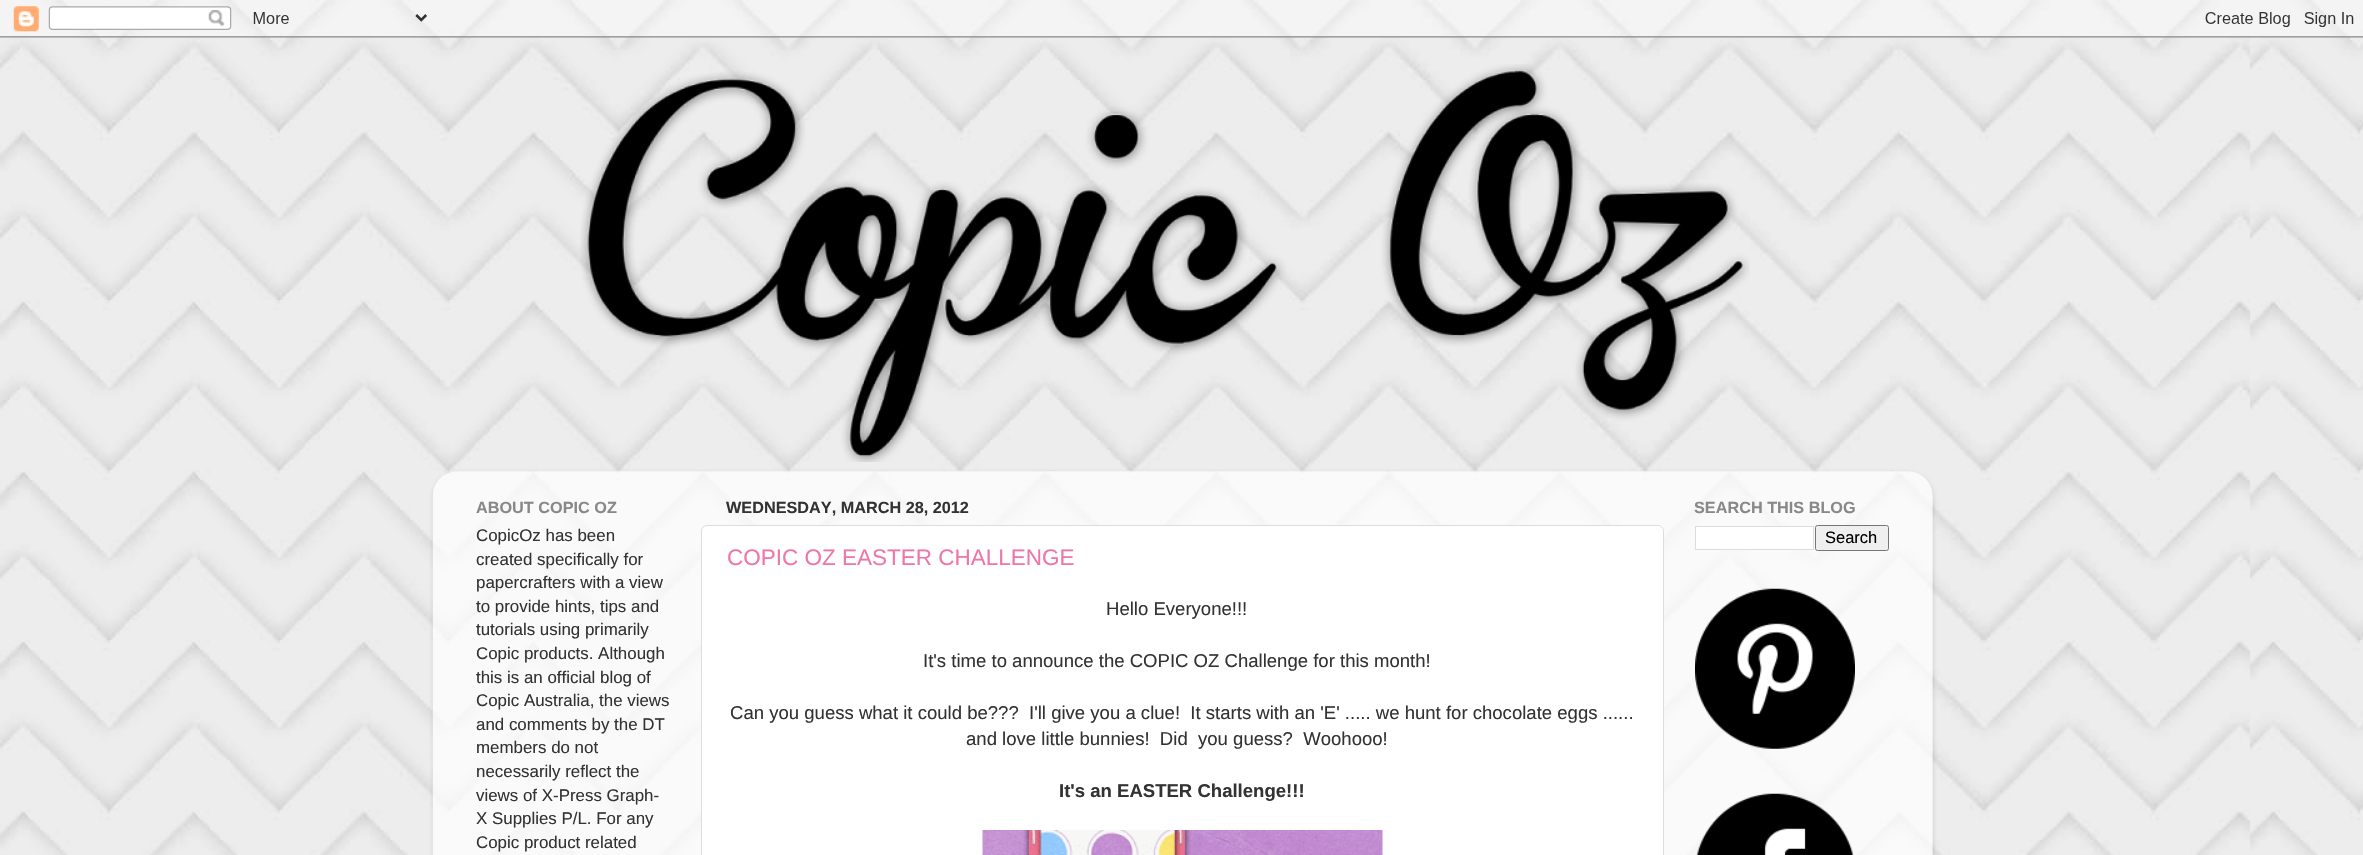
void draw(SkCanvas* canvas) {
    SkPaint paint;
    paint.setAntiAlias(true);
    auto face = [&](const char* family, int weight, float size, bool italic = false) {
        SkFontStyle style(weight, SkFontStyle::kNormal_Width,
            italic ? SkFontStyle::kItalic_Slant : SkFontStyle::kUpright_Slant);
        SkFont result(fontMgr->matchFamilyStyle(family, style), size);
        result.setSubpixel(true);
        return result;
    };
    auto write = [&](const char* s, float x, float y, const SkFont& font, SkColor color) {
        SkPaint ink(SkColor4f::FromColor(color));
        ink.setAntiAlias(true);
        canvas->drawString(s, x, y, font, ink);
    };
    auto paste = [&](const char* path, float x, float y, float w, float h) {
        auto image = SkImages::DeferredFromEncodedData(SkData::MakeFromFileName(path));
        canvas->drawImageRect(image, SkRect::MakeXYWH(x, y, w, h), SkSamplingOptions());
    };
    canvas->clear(SK_ColorWHITE);
    paste("pic1.png", 0, 0, 2363, 855);
    paste("pic2.png", 0, 0, 2363, 38);
    paste("pic3.png", 580, 64, 1170, 398);
    canvas->save();
    canvas->clipPath(SkPathBuilder(SkPathFillType::kEvenOdd).moveTo(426, 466).lineTo(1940, 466).lineTo(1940, 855).lineTo(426, 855).close().moveTo(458, 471).lineTo(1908, 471).cubicTo(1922, 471, 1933, 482, 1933, 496).lineTo(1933, 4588).lineTo(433, 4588).lineTo(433, 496).cubicTo(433, 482, 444, 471, 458, 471).close().detach(), true);
    paint.setColor(SkColorSetARGB(38, 0, 0, 0));
    paint.setMaskFilter(SkMaskFilter::MakeBlur(kNormal_SkBlurStyle, 2));
    canvas->drawRoundRect(SkRect::MakeXYWH(433, 473, 1500, 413), 25, 25, paint);
    paint.setMaskFilter(nullptr);
    canvas->restore();
    paste("pic4.png", 432, 471, 1501, 384);
    auto kFont1 = face("Liberation Sans", 700, 16.25f);
    write("ABOUT COPIC OZ", 476, 513, kFont1, SkColorSetRGB(136, 136, 136));
    auto kFont2 = face("Liberation Sans", 400, 16.9f);
    write("CopicOz has been", 476, 541, kFont2, SkColorSetRGB(51, 51, 51));
    write("created specifically for", 476, 565, kFont2, SkColorSetRGB(51, 51, 51));
    write("papercrafters with a view", 476, 588, kFont2, SkColorSetRGB(51, 51, 51));
    write("to provide hints, tips and", 476, 612, kFont2, SkColorSetRGB(51, 51, 51));
    write("tutorials using primarily", 476, 635, kFont2, SkColorSetRGB(51, 51, 51));
    write("Copic products. Although", 476, 659, kFont2, SkColorSetRGB(51, 51, 51));
    write("this is an official blog of", 476, 683, kFont2, SkColorSetRGB(51, 51, 51));
    write("Copic Australia, the views", 476, 706, kFont2, SkColorSetRGB(51, 51, 51));
    write("and comments by the DT", 476, 730, kFont2, SkColorSetRGB(51, 51, 51));
    write("members do not", 476, 753, kFont2, SkColorSetRGB(51, 51, 51));
    write("necessarily reflect the", 476, 777, kFont2, SkColorSetRGB(51, 51, 51));
    write("views of X-Press Graph-", 476, 801, kFont2, SkColorSetRGB(51, 51, 51));
    write("X Supplies P/L. For any", 476, 824, kFont2, SkColorSetRGB(51, 51, 51));
    write("Copic product related", 476, 848, kFont2, SkColorSetRGB(51, 51, 51));
    write("WEDNESDAY, MARCH 28, 2012", 726, 513, kFont1, SkColorSetRGB(51, 51, 51));
    paint.setColor(SK_ColorWHITE);
    canvas->drawRoundRect(SkRect::MakeXYWH(701.5f, 525.5f, 962, 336), 5.5f, 5.5f, paint);
    paint.setStyle(SkPaint::kStroke_Style);
    paint.setStrokeWidth(1);
    paint.setColor(SkColorSetRGB(221, 221, 221));
    canvas->drawRoundRect(SkRect::MakeXYWH(701.5f, 525.5f, 962, 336), 5.5f, 5.5f, paint);
    auto kFont3 = face("Liberation Sans", 400, 22.5f);
    write("COPIC OZ EASTER CHALLENGE", 727, 565, kFont3, SkColorSetRGB(238, 119, 170));
    auto kFont4 = face("Liberation Sans", 400, 18.55f);
    write("Hello Everyone!!!", 1106, 615, kFont4, SkColorSetRGB(51, 51, 51));
    write("It's time to announce the COPIC OZ Challenge for this month!", 923, 667, kFont4, SkColorSetRGB(51, 51, 51));
    write("Can you guess what it could be?\077?  I'll give you a clue!  It starts with an 'E' ..... we hunt for chocolate eggs ......", 730, 719, kFont4, SkColorSetRGB(51, 51, 51));
    write("and love little bunnies!  Did  you guess?  Woohooo!", 966, 745, kFont4, SkColorSetRGB(51, 51, 51));
    auto kFont5 = face("Liberation Sans", 700, 18.55f);
    write("It's an EASTER Challenge!!!", 1059, 797, kFont5, SkColorSetRGB(51, 51, 51));
    paste("pic5.png", 982, 830, 401, 25);
    write("SEARCH THIS BLOG", 1694, 513, kFont1, SkColorSetRGB(136, 136, 136));
    paint.setStyle(SkPaint::kFill_Style);
    paint.setColor(SK_ColorWHITE);
    canvas->drawRect(SkRect::MakeXYWH(1695.5f, 526.5f, 118, 23), paint);
    paint.setStyle(SkPaint::kStroke_Style);
    paint.setColor(SkColorSetRGB(221, 221, 221));
    canvas->drawRect(SkRect::MakeXYWH(1695.5f, 526.5f, 118, 23), paint);
    paint.setStyle(SkPaint::kFill_Style);
    paint.setColor(SkColorSetRGB(239, 239, 239));
    canvas->drawRoundRect(SkRect::MakeXYWH(1815.5f, 525.5f, 73, 25), 2, 2, paint);
    paint.setStyle(SkPaint::kStroke_Style);
    paint.setColor(SkColorSetRGB(118, 118, 118));
    canvas->drawRoundRect(SkRect::MakeXYWH(1815.5f, 525.5f, 73, 25), 2, 2, paint);
    auto kFont6 = face("Liberation Sans", 400, 16.5f);
    write("Search", 1825, 543, kFont6, SK_ColorBLACK);
    paste("pic6.png", 1695, 588, 160, 161);
    paste("pic7.png", 1696, 793, 158, 62);
}
